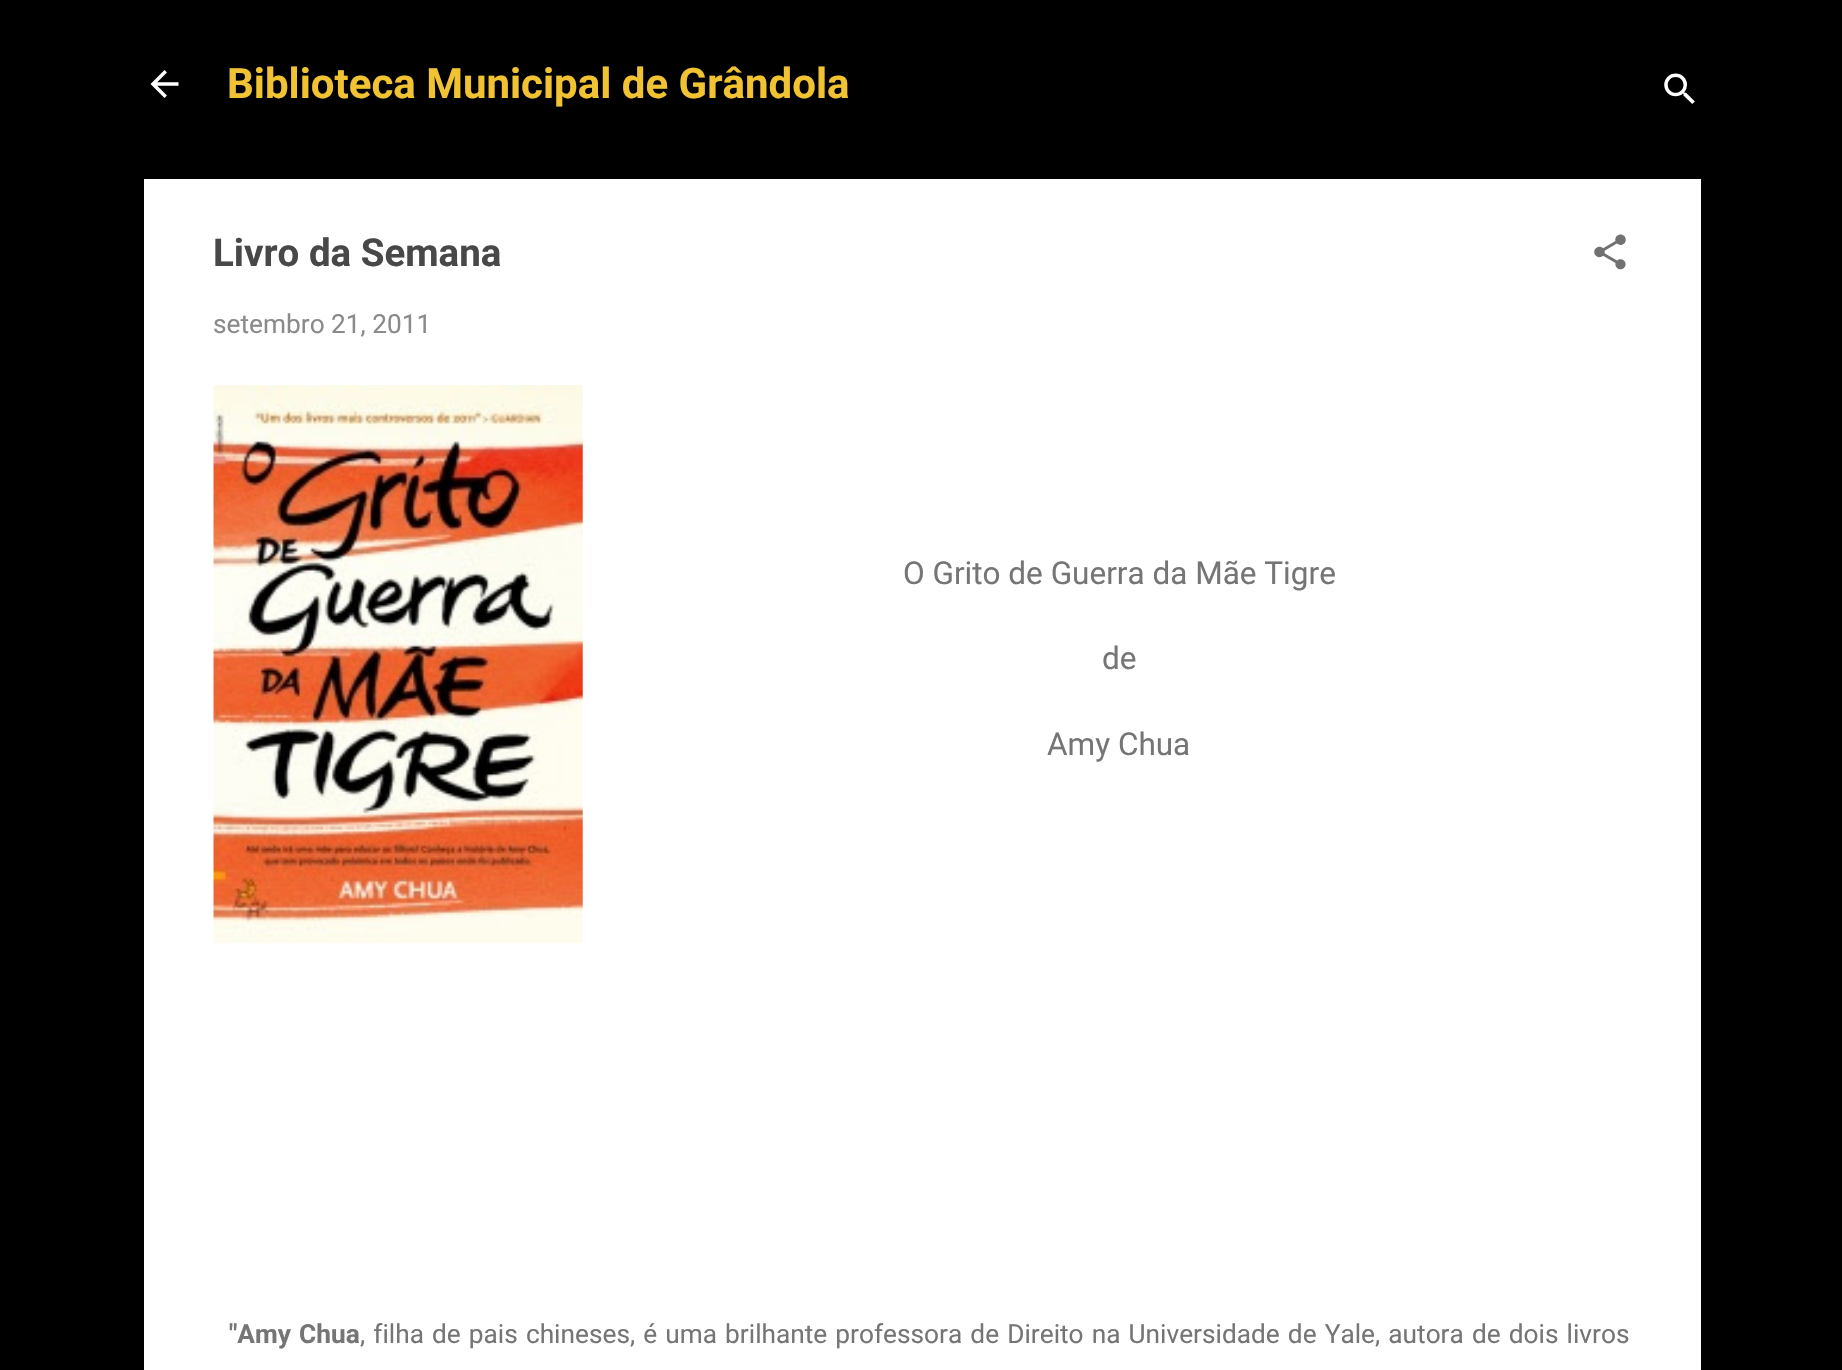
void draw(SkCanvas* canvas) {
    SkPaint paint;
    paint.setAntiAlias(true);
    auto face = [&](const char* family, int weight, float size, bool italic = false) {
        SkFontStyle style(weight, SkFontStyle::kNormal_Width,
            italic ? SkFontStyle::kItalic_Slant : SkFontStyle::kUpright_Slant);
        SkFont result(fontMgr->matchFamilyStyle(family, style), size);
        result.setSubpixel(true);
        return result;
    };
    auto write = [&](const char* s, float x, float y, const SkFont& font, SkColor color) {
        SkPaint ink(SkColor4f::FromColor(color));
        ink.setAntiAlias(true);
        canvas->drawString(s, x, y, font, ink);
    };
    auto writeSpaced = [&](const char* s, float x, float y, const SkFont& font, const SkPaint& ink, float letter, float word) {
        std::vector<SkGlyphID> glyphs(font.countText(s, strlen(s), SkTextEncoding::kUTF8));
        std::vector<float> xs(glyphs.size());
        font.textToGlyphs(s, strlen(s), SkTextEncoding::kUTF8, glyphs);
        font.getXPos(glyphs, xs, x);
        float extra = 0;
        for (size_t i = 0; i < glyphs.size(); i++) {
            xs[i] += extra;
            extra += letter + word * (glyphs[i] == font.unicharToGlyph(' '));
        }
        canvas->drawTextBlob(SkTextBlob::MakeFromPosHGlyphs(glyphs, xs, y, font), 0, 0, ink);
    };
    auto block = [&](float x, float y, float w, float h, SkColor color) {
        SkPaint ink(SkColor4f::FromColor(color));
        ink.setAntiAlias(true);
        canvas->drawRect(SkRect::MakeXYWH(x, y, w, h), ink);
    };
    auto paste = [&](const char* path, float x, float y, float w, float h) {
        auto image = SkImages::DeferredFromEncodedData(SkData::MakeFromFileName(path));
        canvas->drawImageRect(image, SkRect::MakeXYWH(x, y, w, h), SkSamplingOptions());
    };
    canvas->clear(SK_ColorBLACK);
    paste("pic1.png", 150, 70, 29, 28);
    auto kFont1 = face("Roboto", 700, 42);
    write("Biblioteca Municipal de Grândola", 227, 98, kFont1, SkColorSetRGB(241, 194, 50));
    paste("pic2.png", 1664, 73, 31, 31);
    block(144, 179, 1557, 1191, SK_ColorWHITE);
    auto kFont2 = face("Roboto", 700, 38.5f);
    write("Livro da Semana", 213, 266, kFont2, SkColorSetRGB(72, 72, 72));
    paste("pic3.png", 1594, 234, 32, 36);
    auto kFont3 = face("Roboto", 400, 26.25f);
    write("setembro 21, 2011", 213, 333, kFont3, SkColorSetRGB(138, 138, 138));
    paste("pic4.png", 213, 385, 370, 559);
    auto kFont4 = face("Roboto", 400, 31.5f);
    write("O Grito de Guerra da Mãe Tigre", 903, 584, kFont4, SkColorSetRGB(117, 117, 117));
    write("de", 1102, 669, kFont4, SkColorSetRGB(117, 117, 117));
    write("Amy Chua", 1047, 755, kFont4, SkColorSetRGB(117, 117, 117));
    auto kFont5 = face("Roboto", 700, 26.25f);
    paint.setColor(SkColorSetRGB(117, 117, 117));
    writeSpaced("\"Amy Chua", 229, 1343, kFont5, paint, 0, 1.6f);
    writeSpaced(", filha de pais chineses, é uma brilhante professora de Direito na Universidade de Yale, autora de dois livros", 360, 1343, kFont3, paint, 0, 1.6f);
}
